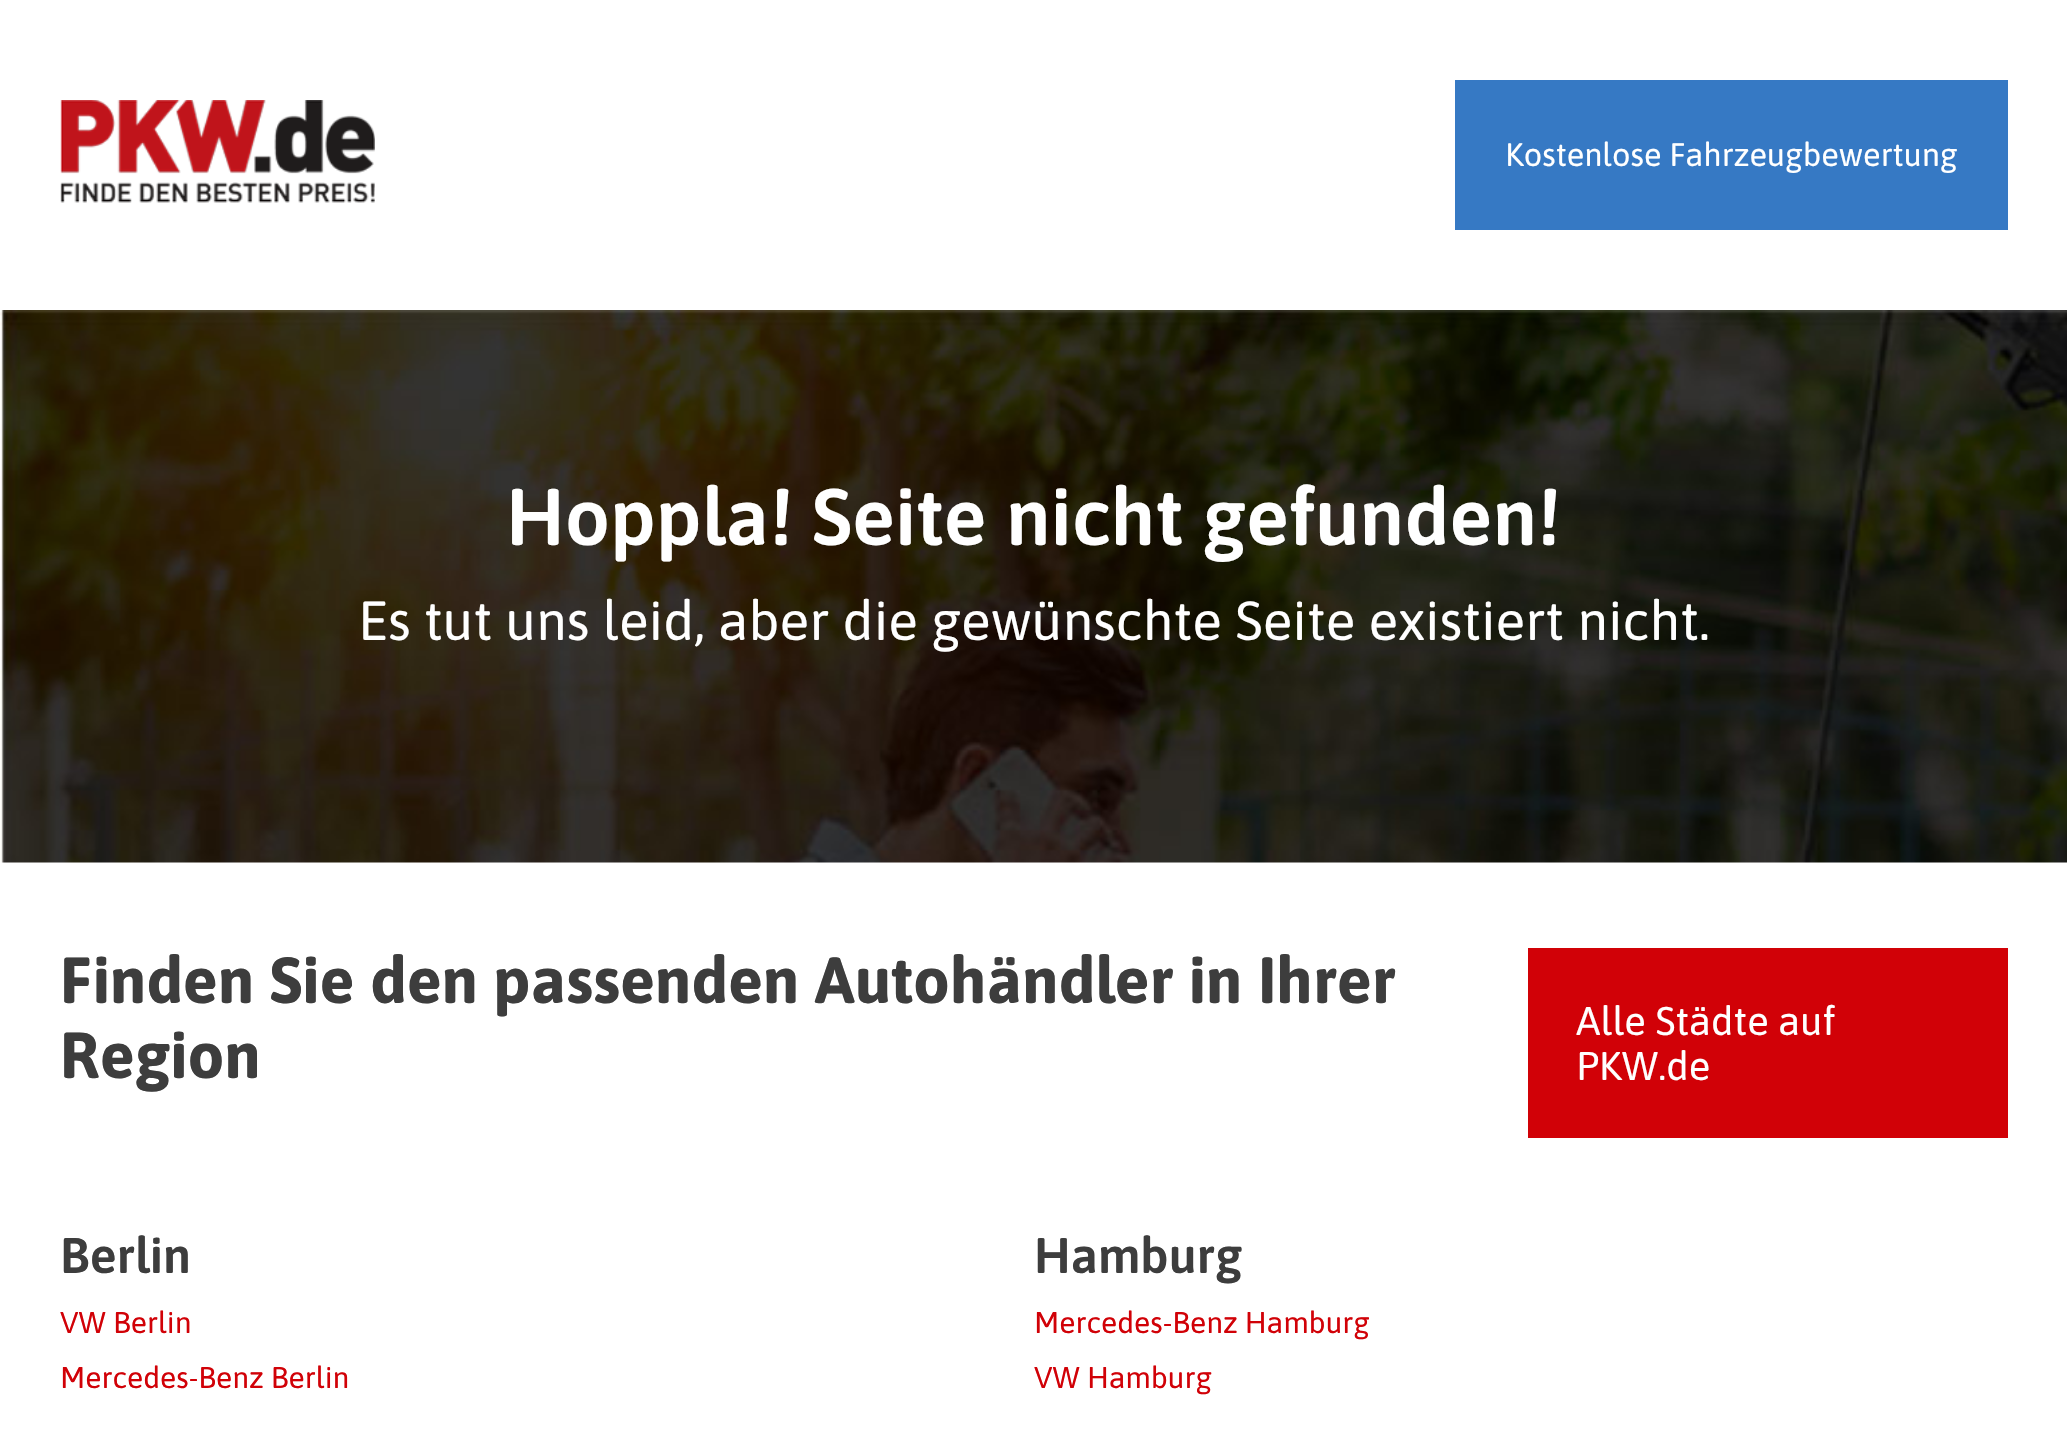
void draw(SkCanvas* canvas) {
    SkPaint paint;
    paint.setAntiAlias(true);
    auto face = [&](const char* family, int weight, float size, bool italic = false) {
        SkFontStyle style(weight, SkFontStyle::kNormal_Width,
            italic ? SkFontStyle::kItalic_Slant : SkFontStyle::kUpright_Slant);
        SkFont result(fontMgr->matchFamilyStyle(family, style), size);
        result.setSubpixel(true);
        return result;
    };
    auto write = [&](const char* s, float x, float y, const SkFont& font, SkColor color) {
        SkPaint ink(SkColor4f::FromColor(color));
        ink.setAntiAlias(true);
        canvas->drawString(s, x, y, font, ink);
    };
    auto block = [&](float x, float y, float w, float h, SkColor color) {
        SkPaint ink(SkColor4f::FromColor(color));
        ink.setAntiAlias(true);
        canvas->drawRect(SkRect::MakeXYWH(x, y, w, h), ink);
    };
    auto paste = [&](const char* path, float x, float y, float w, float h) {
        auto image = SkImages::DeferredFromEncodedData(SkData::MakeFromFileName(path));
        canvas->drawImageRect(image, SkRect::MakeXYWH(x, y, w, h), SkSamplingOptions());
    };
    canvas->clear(SK_ColorWHITE);
    paste("pic1.png", 60, 100, 315, 103);
    block(1455, 80, 553, 150, SkColorSetRGB(54, 121, 196));
    auto kFont1 = face("Asap", 400, 32.5f);
    write("Kostenlose Fahrzeugbewertung", 1505, 166, kFont1, SK_ColorWHITE);
    paste("pic2.png", 0, 310, 2067, 553);
    auto kFont2 = face("Asap", 600, 80);
    write("Hoppla! Seite nicht gefunden!", 506, 545, kFont2, SK_ColorWHITE);
    auto kFont3 = face("Asap", 400, 55);
    write("Es tut uns leid, aber die gewünschte Seite existiert nicht.", 358, 640, kFont3, SK_ColorWHITE);
    auto kFont4 = face("Asap", 700, 65);
    write("Finden Sie den passenden Autohändler in Ihrer", 60, 1003, kFont4, SkColorSetRGB(61, 61, 61));
    write("Region", 60, 1078, kFont4, SkColorSetRGB(61, 61, 61));
    block(1528, 948, 480, 190, SkColorSetRGB(209, 1, 7));
    auto kFont5 = face("Asap", 400, 40);
    write("Alle Städte auf", 1576, 1035, kFont5, SK_ColorWHITE);
    write("PKW.de", 1576, 1080, kFont5, SK_ColorWHITE);
    auto kFont6 = face("Asap", 600, 50);
    write("Berlin", 60, 1273, kFont6, SkColorSetRGB(61, 61, 61));
    auto kFont7 = face("Asap", 400, 30);
    write("VW Berlin", 60, 1333, kFont7, SkColorSetRGB(209, 1, 7));
    write("Mercedes-Benz Berlin", 60, 1388, kFont7, SkColorSetRGB(209, 1, 7));
    write("Hamburg", 1034, 1273, kFont6, SkColorSetRGB(61, 61, 61));
    write("Mercedes-Benz Hamburg", 1034, 1333, kFont7, SkColorSetRGB(209, 1, 7));
    write("VW Hamburg", 1034, 1388, kFont7, SkColorSetRGB(209, 1, 7));
}
